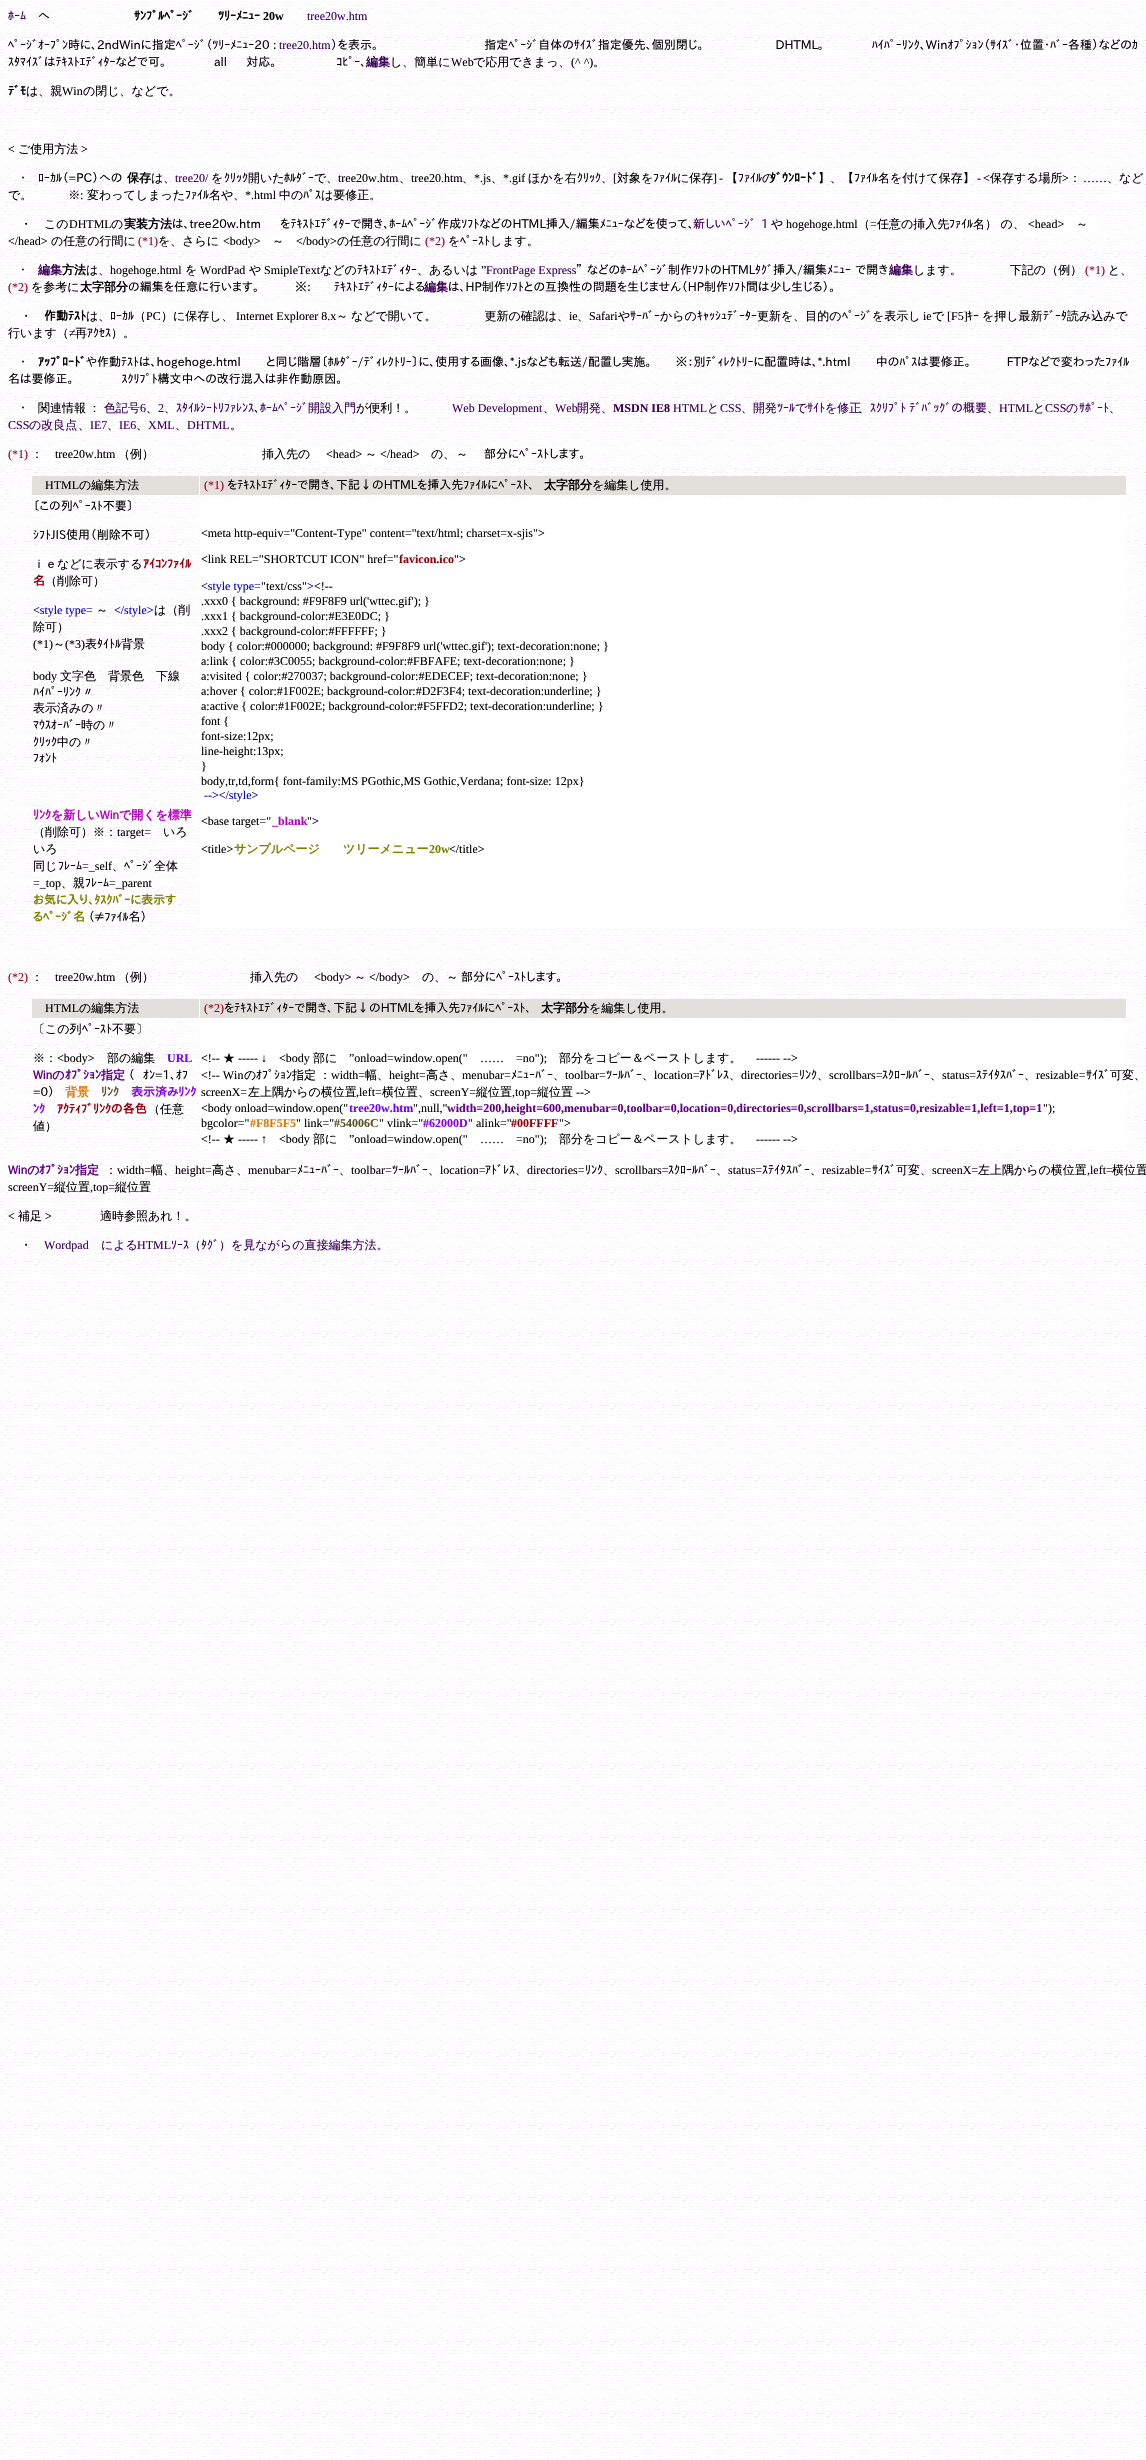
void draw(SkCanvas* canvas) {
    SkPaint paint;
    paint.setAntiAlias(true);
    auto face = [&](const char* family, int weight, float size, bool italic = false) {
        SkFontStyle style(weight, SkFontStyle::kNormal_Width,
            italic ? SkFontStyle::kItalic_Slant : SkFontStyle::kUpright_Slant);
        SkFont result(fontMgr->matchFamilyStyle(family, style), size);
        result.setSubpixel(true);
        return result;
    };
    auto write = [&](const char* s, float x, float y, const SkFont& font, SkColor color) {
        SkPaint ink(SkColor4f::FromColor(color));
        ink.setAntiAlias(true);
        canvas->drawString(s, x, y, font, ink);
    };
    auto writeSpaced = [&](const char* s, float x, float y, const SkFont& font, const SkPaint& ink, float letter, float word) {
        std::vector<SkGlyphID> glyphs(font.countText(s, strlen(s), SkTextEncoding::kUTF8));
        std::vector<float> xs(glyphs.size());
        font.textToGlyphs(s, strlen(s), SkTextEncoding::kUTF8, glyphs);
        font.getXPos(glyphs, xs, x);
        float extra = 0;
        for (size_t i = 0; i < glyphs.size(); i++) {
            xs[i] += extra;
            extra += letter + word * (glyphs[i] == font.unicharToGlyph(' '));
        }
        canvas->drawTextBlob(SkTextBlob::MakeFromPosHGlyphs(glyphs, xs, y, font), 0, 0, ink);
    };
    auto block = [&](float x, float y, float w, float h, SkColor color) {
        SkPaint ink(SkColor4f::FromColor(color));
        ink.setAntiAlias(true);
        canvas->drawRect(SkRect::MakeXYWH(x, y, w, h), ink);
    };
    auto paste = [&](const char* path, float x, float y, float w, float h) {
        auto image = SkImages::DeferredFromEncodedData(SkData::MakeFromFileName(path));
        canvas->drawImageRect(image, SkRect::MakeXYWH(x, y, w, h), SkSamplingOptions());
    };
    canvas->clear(SK_ColorWHITE);
    paste("pic1.png", 0, 0, 1146, 2460);
    block(8, 9, 18, 14, SkColorSetRGB(251, 250, 254));
    auto kFont1 = face("IPAPGothic", 400, 12);
    write("ﾎｰﾑ", 8, 20, kFont1, SkColorSetRGB(60, 0, 85));
    write("へ", 38, 20, kFont1, SK_ColorBLACK);
    auto kFont2 = face("IPAPGothic", 700, 12);
    write("ｻﾝﾌﾟﾙﾍﾟｰｼﾞ　　ﾂﾘｰﾒﾆｭｰ", 134, 20, kFont2, SK_ColorBLACK);
    auto kFont3 = face("Liberation Serif", 700, 12);
    write("20w", 263, 20, kFont3, SK_ColorBLACK);
    block(307, 9, 61, 14, SkColorSetRGB(251, 250, 254));
    auto kFont4 = face("Liberation Serif", 400, 12);
    write("tree20w.htm", 307, 20, kFont4, SkColorSetRGB(60, 0, 85));
    write("ﾍﾟｰｼﾞｵｰﾌﾟﾝ時に、2ndWinに指定ﾍﾟｰｼﾞ（ﾂﾘｰﾒﾆｭｰ20 :", 8, 49, kFont1, SK_ColorBLACK);
    block(279, 38, 52, 14, SkColorSetRGB(251, 250, 254));
    write("tree20.htm", 279, 49, kFont4, SkColorSetRGB(60, 0, 85));
    paint.setColor(SK_ColorBLACK);
    writeSpaced("）を表示。　　　　　 指定ﾍﾟｰｼﾞ自体のｻｲｽﾞ指定優先、個別閉じ。　　　　　　DHTML。　　　　ﾊｲﾊﾟｰﾘﾝｸ、Winｵﾌﾟｼｮﾝ（ｻｲｽﾞ・位置・ﾊﾞｰ各種）などのｶ", 331, 49, kFont1, paint, 0, 43);
    writeSpaced("ｽﾀﾏｲｽﾞはﾃｷｽﾄｴﾃﾞｨﾀｰなどで可。　　　　all 対応。　　　　　ｺﾋﾟｰ、", 8, 66, kFont1, paint, 0, 16);
    block(366, 55, 24, 14, SkColorSetRGB(251, 250, 254));
    auto kFont5 = face("WenQuanYi Zen Hei", 700, 12);
    write("編集", 366, 66, kFont5, SkColorSetRGB(60, 0, 85));
    auto kFont6 = face("WenQuanYi Zen Hei", 500, 12);
    write("し、簡単に", 390, 66, kFont6, SK_ColorBLACK);
    write("Web", 451, 66, kFont4, SK_ColorBLACK);
    write("で応用できまっ、", 473, 66, kFont6, SK_ColorBLACK);
    write("(^ ^)", 571, 66, kFont4, SK_ColorBLACK);
    write("。", 593, 66, kFont6, SK_ColorBLACK);
    write("ﾃﾞﾓ", 8, 95, kFont2, SK_ColorBLACK);
    write("は、親", 26, 95, kFont6, SK_ColorBLACK);
    write("Win", 62, 95, kFont4, SK_ColorBLACK);
    write("の閉じ、などで。", 83, 95, kFont6, SK_ColorBLACK);
    write("<", 8, 153, kFont4, SK_ColorBLACK);
    write("ご使用方法", 18, 153, kFont6, SK_ColorBLACK);
    write(">", 81, 153, kFont4, SK_ColorBLACK);
    write("・　ﾛｰｶﾙ（=PC）への", 20, 182, kFont1, SK_ColorBLACK);
    write("保存", 127, 182, kFont5, SK_ColorBLACK);
    write("は、", 151, 182, kFont6, SK_ColorBLACK);
    block(175, 171, 33, 14, SkColorSetRGB(251, 250, 254));
    write("tree20/", 175, 182, kFont4, SkColorSetRGB(60, 0, 85));
    write("を", 211, 182, kFont6, SK_ColorBLACK);
    write("ｸﾘｯｸ", 224, 182, kFont1, SK_ColorBLACK);
    write("開いた", 248, 182, kFont6, SK_ColorBLACK);
    write("ﾎﾙﾀﾞｰ", 284, 182, kFont1, SK_ColorBLACK);
    write("で、", 314, 182, kFont6, SK_ColorBLACK);
    write("tree20w.htm", 338, 182, kFont4, SK_ColorBLACK);
    write("、", 399, 182, kFont6, SK_ColorBLACK);
    write("tree20.htm", 411, 182, kFont4, SK_ColorBLACK);
    write("、", 462, 182, kFont6, SK_ColorBLACK);
    write("*.js", 474, 182, kFont4, SK_ColorBLACK);
    write("、", 491, 182, kFont6, SK_ColorBLACK);
    write("*.gif", 503, 182, kFont4, SK_ColorBLACK);
    write("ほかを右", 528, 182, kFont6, SK_ColorBLACK);
    write("ｸﾘｯｸ", 577, 182, kFont1, SK_ColorBLACK);
    write("、", 601, 182, kFont6, SK_ColorBLACK);
    write("[", 613, 182, kFont4, SK_ColorBLACK);
    write("対象を", 617, 182, kFont6, SK_ColorBLACK);
    write("ﾌｧｲﾙ", 653, 182, kFont1, SK_ColorBLACK);
    write("に保存", 677, 182, kFont6, SK_ColorBLACK);
    writeSpaced("] -", 713, 182, kFont4, paint, 0, -1);
    write("【", 726, 182, kFont6, SK_ColorBLACK);
    write("ﾌｧｲﾙ", 738, 182, kFont1, SK_ColorBLACK);
    write("の", 762, 182, kFont6, SK_ColorBLACK);
    write("ﾀﾞｳﾝﾛｰﾄﾞ", 770, 182, kFont2, SK_ColorBLACK);
    write("】、【", 818, 182, kFont6, SK_ColorBLACK);
    write("ﾌｧｲﾙ", 854, 182, kFont1, SK_ColorBLACK);
    write("名を付けて保存】", 878, 182, kFont6, SK_ColorBLACK);
    writeSpaced("- <", 977, 182, kFont4, paint, 0, -1);
    write("保存する場所", 990, 182, kFont6, SK_ColorBLACK);
    write(">", 1062, 182, kFont4, SK_ColorBLACK);
    write("：", 1069, 182, kFont6, SK_ColorBLACK);
    write("……", 1083, 182, kFont4, SK_ColorBLACK);
    write("、など", 1107, 182, kFont6, SK_ColorBLACK);
    write("で。　　　※", 8, 199, kFont6, SK_ColorBLACK);
    write(":", 80, 199, kFont4, SK_ColorBLACK);
    write("変わってしまった", 87, 199, kFont6, SK_ColorBLACK);
    write("ﾌｧｲﾙ", 185, 199, kFont1, SK_ColorBLACK);
    write("名や、", 209, 199, kFont6, SK_ColorBLACK);
    write("*.html", 245, 199, kFont4, SK_ColorBLACK);
    write("中の", 279, 199, kFont6, SK_ColorBLACK);
    write("ﾊﾟｽ", 303, 199, kFont1, SK_ColorBLACK);
    write("は要修正。", 321, 199, kFont6, SK_ColorBLACK);
    write("・　この", 20, 228, kFont6, SK_ColorBLACK);
    write("DHTML", 69, 228, kFont4, SK_ColorBLACK);
    write("の", 111, 228, kFont6, SK_ColorBLACK);
    write("実装方法", 124, 228, kFont5, SK_ColorBLACK);
    writeSpaced("は、tree20w.htm をﾃｷｽﾄｴﾃﾞｨﾀｰで開き、ﾎｰﾑﾍﾟｰｼﾞ作成ｿﾌﾄなどのHTML挿入/編集ﾒﾆｭｰなどを使って、", 172, 228, kFont1, paint, 0, 16);
    block(693, 217, 76, 14, SkColorSetRGB(251, 250, 254));
    paint.setColor(SkColorSetRGB(60, 0, 85));
    writeSpaced("新しいﾍﾟｰｼﾞ 1", 693, 228, kFont1, paint, 0, 2);
    write("や", 771, 228, kFont6, SK_ColorBLACK);
    write("hogehoge.html", 786, 228, kFont4, SK_ColorBLACK);
    write("（", 858, 228, kFont6, SK_ColorBLACK);
    write("=", 870, 228, kFont4, SK_ColorBLACK);
    write("任意の挿入先", 877, 228, kFont6, SK_ColorBLACK);
    write("ﾌｧｲﾙ", 949, 228, kFont1, SK_ColorBLACK);
    write("名） の、", 973, 228, kFont6, SK_ColorBLACK);
    block(1025, 217, 75, 14, SK_ColorWHITE);
    write("<head>", 1028, 228, kFont4, SK_ColorBLACK);
    write("～", 1076, 228, kFont6, SK_ColorBLACK);
    block(8, 234, 40, 14, SK_ColorWHITE);
    write("</head>", 8, 245, kFont4, SK_ColorBLACK);
    write("の任意の行間に", 51, 245, kFont6, SK_ColorBLACK);
    block(138, 234, 20, 14, SkColorSetRGB(251, 250, 254));
    write("(*1)", 138, 245, kFont4, SkColorSetRGB(153, 0, 34));
    write("を、さらに", 158, 245, kFont6, SK_ColorBLACK);
    block(220, 234, 117, 14, SK_ColorWHITE);
    write("<body>", 223, 245, kFont4, SK_ColorBLACK);
    write("～", 272, 245, kFont6, SK_ColorBLACK);
    write("</body>", 296, 245, kFont4, SK_ColorBLACK);
    write("の任意の行間に", 337, 245, kFont6, SK_ColorBLACK);
    block(425, 234, 20, 14, SkColorSetRGB(251, 250, 254));
    write("(*2)", 425, 245, kFont4, SkColorSetRGB(153, 0, 34));
    write("を", 448, 245, kFont6, SK_ColorBLACK);
    write("ﾍﾟｰｽﾄ", 460, 245, kFont1, SK_ColorBLACK);
    write("します。", 490, 245, kFont6, SK_ColorBLACK);
    write("･", 20, 274, kFont1, SK_ColorBLACK);
    block(38, 263, 24, 14, SkColorSetRGB(251, 250, 254));
    write("編集", 38, 274, kFont5, SkColorSetRGB(60, 0, 85));
    write("方法", 62, 274, kFont5, SK_ColorBLACK);
    write("は、", 86, 274, kFont6, SK_ColorBLACK);
    write("hogehoge.html", 110, 274, kFont4, SK_ColorBLACK);
    write("を", 185, 274, kFont6, SK_ColorBLACK);
    write("WordPad", 200, 274, kFont4, SK_ColorBLACK);
    write("や", 249, 274, kFont6, SK_ColorBLACK);
    write("SmipleText", 264, 274, kFont4, SK_ColorBLACK);
    write("などの", 320, 274, kFont6, SK_ColorBLACK);
    write("ﾃｷｽﾄｴﾃﾞｨﾀｰ", 357, 274, kFont1, SK_ColorBLACK);
    write("、あるいは", 417, 274, kFont6, SK_ColorBLACK);
    write("”", 481, 274, kFont4, SK_ColorBLACK);
    block(486, 263, 90, 14, SkColorSetRGB(251, 250, 254));
    write("FrontPage Express", 486, 274, kFont4, SkColorSetRGB(60, 0, 85));
    paint.setColor(SK_ColorBLACK);
    writeSpaced("” などのﾎｰﾑﾍﾟｰｼﾞ制作ｿﾌﾄのHTMLﾀｸﾞ挿入/編集ﾒﾆｭｰ で開き", 576, 274, kFont1, paint, 0, 1);
    block(889, 263, 24, 14, SkColorSetRGB(251, 250, 254));
    write("編集", 889, 274, kFont5, SkColorSetRGB(60, 0, 85));
    write("します。　　　　下記の（例）", 913, 274, kFont6, SK_ColorBLACK);
    block(1085, 263, 20, 14, SkColorSetRGB(251, 250, 254));
    write("(*1)", 1085, 274, kFont4, SkColorSetRGB(153, 0, 34));
    write("と、", 1108, 274, kFont6, SK_ColorBLACK);
    block(8, 280, 20, 14, SkColorSetRGB(251, 250, 254));
    write("(*2)", 8, 291, kFont4, SkColorSetRGB(153, 0, 34));
    write("を参考に", 31, 291, kFont6, SK_ColorBLACK);
    write("太字部分", 80, 291, kFont5, SK_ColorBLACK);
    writeSpaced("の編集を任意に行います。　　　※: ﾃｷｽﾄｴﾃﾞｨﾀｰによる", 128, 291, kFont1, paint, 0, 20);
    block(424, 280, 24, 14, SkColorSetRGB(251, 250, 254));
    write("編集", 424, 291, kFont5, SkColorSetRGB(60, 0, 85));
    write("は、HP制作ｿﾌﾄとの互換性の問題を生じません（HP制作ｿﾌﾄ間は少し生じる）。", 448, 291, kFont1, SK_ColorBLACK);
    write("・", 20, 320, kFont6, SK_ColorBLACK);
    write("作動ﾃｽﾄ", 44, 320, kFont2, SK_ColorBLACK);
    write("は、", 86, 320, kFont6, SK_ColorBLACK);
    write("ﾛｰｶﾙ", 110, 320, kFont1, SK_ColorBLACK);
    write("（", 134, 320, kFont6, SK_ColorBLACK);
    write("PC", 146, 320, kFont4, SK_ColorBLACK);
    write("）に保存し、", 161, 320, kFont6, SK_ColorBLACK);
    write("Internet Explorer 8.x", 236, 320, kFont4, SK_ColorBLACK);
    write("～", 336, 320, kFont6, SK_ColorBLACK);
    write("などで開いて。　　　　更新の確認は、", 351, 320, kFont6, SK_ColorBLACK);
    write("ie", 569, 320, kFont4, SK_ColorBLACK);
    write("Safari", 589, 320, kFont4, SK_ColorBLACK);
    write("や", 618, 320, kFont6, SK_ColorBLACK);
    write("ｻｰﾊﾞｰ", 630, 320, kFont1, SK_ColorBLACK);
    write("からの", 660, 320, kFont6, SK_ColorBLACK);
    write("ｷｬｯｼｭﾃﾞｰﾀｰ", 697, 320, kFont1, SK_ColorBLACK);
    write("更新を、目的の", 757, 320, kFont6, SK_ColorBLACK);
    write("ﾍﾟｰｼﾞ", 842, 320, kFont1, SK_ColorBLACK);
    write("を表示し", 872, 320, kFont6, SK_ColorBLACK);
    write("ie", 923, 320, kFont4, SK_ColorBLACK);
    write("で", 932, 320, kFont6, SK_ColorBLACK);
    write("[F5]", 947, 320, kFont4, SK_ColorBLACK);
    write("ｷｰ", 967, 320, kFont1, SK_ColorBLACK);
    write("を押し最新", 982, 320, kFont6, SK_ColorBLACK);
    write("ﾃﾞｰﾀ", 1043, 320, kFont1, SK_ColorBLACK);
    write("読み込みで", 1067, 320, kFont6, SK_ColorBLACK);
    write("、", 577, 320, kFont6, SK_ColorBLACK);
    write("行います（", 8, 337, kFont6, SK_ColorBLACK);
    write("≠", 69, 337, kFont4, SK_ColorBLACK);
    write("再", 75, 337, kFont6, SK_ColorBLACK);
    write("ｱｸｾｽ", 87, 337, kFont1, SK_ColorBLACK);
    write("）。", 111, 337, kFont6, SK_ColorBLACK);
    write("･", 20, 366, kFont1, SK_ColorBLACK);
    write("ｱｯﾌﾟﾛｰﾄﾞ", 38, 366, kFont2, SK_ColorBLACK);
    writeSpaced("や作動ﾃｽﾄは、hogehoge.html と同じ階層〔ﾎﾙﾀﾞｰ/ﾃﾞｨﾚｸﾄﾘｰ〕に、使用する画像、*.jsなども転送/配置し実施。　　※：別ﾃﾞｨﾚｸﾄﾘｰに配置時は、*.html 中のﾊﾟｽは要修正。　　　FTPなどで変わったﾌｧｲﾙ", 86, 366, kFont1, paint, 0, 22);
    write("名は要修正。　　　　ｽｸﾘﾌﾟﾄ構文中への改行混入は非作動原因。", 8, 383, kFont1, SK_ColorBLACK);
    write("･", 20, 412, kFont1, SK_ColorBLACK);
    writeSpaced("関連情報 ：", 38, 412, kFont6, paint, 0, -1);
    block(104, 401, 42, 14, SkColorSetRGB(251, 250, 254));
    write("色記号", 104, 412, kFont6, SkColorSetRGB(60, 0, 85));
    write("6", 140, 412, kFont4, SkColorSetRGB(60, 0, 85));
    block(158, 401, 6, 14, SkColorSetRGB(251, 250, 254));
    write("2", 158, 412, kFont4, SkColorSetRGB(60, 0, 85));
    block(176, 401, 78, 14, SkColorSetRGB(251, 250, 254));
    write("ｽﾀｲﾙｼｰﾄﾘﾌｧﾚﾝｽ", 176, 412, kFont1, SkColorSetRGB(60, 0, 85));
    block(260, 401, 96, 14, SkColorSetRGB(251, 250, 254));
    write("ﾎｰﾑﾍﾟｰｼﾞ", 260, 412, kFont1, SkColorSetRGB(60, 0, 85));
    write("開設入門", 308, 412, kFont6, SkColorSetRGB(60, 0, 85));
    write("が便利！。", 356, 412, kFont6, SK_ColorBLACK);
    block(452, 401, 91, 14, SkColorSetRGB(251, 250, 254));
    write("Web Development", 452, 412, kFont4, SkColorSetRGB(60, 0, 85));
    block(555, 401, 46, 14, SkColorSetRGB(251, 250, 254));
    write("Web", 555, 412, kFont4, SkColorSetRGB(60, 0, 85));
    write("開発", 577, 412, kFont6, SkColorSetRGB(60, 0, 85));
    block(613, 401, 57, 14, SkColorSetRGB(251, 250, 254));
    write("MSDN IE8", 613, 412, kFont3, SkColorSetRGB(60, 0, 85));
    block(673, 401, 68, 14, SkColorSetRGB(251, 250, 254));
    write("HTML", 673, 412, kFont4, SkColorSetRGB(60, 0, 85));
    write("と", 707, 412, kFont6, SkColorSetRGB(60, 0, 85));
    write("CSS", 720, 412, kFont4, SkColorSetRGB(60, 0, 85));
    block(753, 401, 105, 14, SkColorSetRGB(251, 250, 254));
    write("開発", 753, 412, kFont6, SkColorSetRGB(60, 0, 85));
    write("ﾂｰﾙ", 777, 412, kFont1, SkColorSetRGB(60, 0, 85));
    write("で", 795, 412, kFont6, SkColorSetRGB(60, 0, 85));
    write("ｻｲﾄ", 807, 412, kFont1, SkColorSetRGB(60, 0, 85));
    write("を修正", 825, 412, kFont6, SkColorSetRGB(60, 0, 85));
    block(870, 401, 117, 14, SkColorSetRGB(251, 250, 254));
    write("ｽｸﾘﾌﾟﾄ ﾃﾞﾊﾞｯｸﾞの概要", 870, 412, kFont1, SkColorSetRGB(60, 0, 85));
    block(999, 401, 110, 14, SkColorSetRGB(251, 250, 254));
    write("HTML", 999, 412, kFont4, SkColorSetRGB(60, 0, 85));
    write("と", 1033, 412, kFont6, SkColorSetRGB(60, 0, 85));
    write("CSS", 1045, 412, kFont4, SkColorSetRGB(60, 0, 85));
    write("の", 1066, 412, kFont6, SkColorSetRGB(60, 0, 85));
    write("ｻﾎﾟｰﾄ", 1079, 412, kFont1, SkColorSetRGB(60, 0, 85));
    write("、", 146, 412, kFont6, SK_ColorBLACK);
    write("、", 164, 412, kFont6, SK_ColorBLACK);
    write("、", 254, 412, kFont1, SK_ColorBLACK);
    write("、", 543, 412, kFont6, SK_ColorBLACK);
    write("、", 601, 412, kFont6, SK_ColorBLACK);
    write("、", 741, 412, kFont6, SK_ColorBLACK);
    write("、", 858, 412, kFont6, SK_ColorBLACK);
    write("、", 987, 412, kFont6, SK_ColorBLACK);
    write("、", 1109, 412, kFont6, SK_ColorBLACK);
    block(8, 418, 70, 14, SkColorSetRGB(251, 250, 254));
    write("CSS", 8, 429, kFont4, SkColorSetRGB(60, 0, 85));
    write("の改良点", 29, 429, kFont6, SkColorSetRGB(60, 0, 85));
    write("、", 78, 429, kFont6, SK_ColorBLACK);
    block(90, 418, 17, 14, SkColorSetRGB(251, 250, 254));
    write("IE7", 90, 429, kFont4, SkColorSetRGB(60, 0, 85));
    write("、", 107, 429, kFont6, SK_ColorBLACK);
    block(119, 418, 17, 14, SkColorSetRGB(251, 250, 254));
    write("IE6", 119, 429, kFont4, SkColorSetRGB(60, 0, 85));
    write("、", 136, 429, kFont6, SK_ColorBLACK);
    block(148, 418, 27, 14, SkColorSetRGB(251, 250, 254));
    write("XML", 148, 429, kFont4, SkColorSetRGB(60, 0, 85));
    write("、", 175, 429, kFont6, SK_ColorBLACK);
    block(187, 418, 43, 14, SkColorSetRGB(251, 250, 254));
    write("DHTML", 187, 429, kFont4, SkColorSetRGB(60, 0, 85));
    write("。", 230, 429, kFont6, SK_ColorBLACK);
    write("(*1)", 8, 458, kFont4, SkColorSetRGB(153, 0, 34));
    write("：", 31, 458, kFont6, SK_ColorBLACK);
    write("tree20w.htm", 55, 458, kFont4, SK_ColorBLACK);
    write("（例）", 118, 458, kFont6, SK_ColorBLACK);
    block(250, 447, 169, 14, SK_ColorWHITE);
    write("挿入先の", 262, 458, kFont6, SK_ColorBLACK);
    write("<head>", 326, 458, kFont4, SK_ColorBLACK);
    write("～", 365, 458, kFont6, SK_ColorBLACK);
    write("</head>", 380, 458, kFont4, SK_ColorBLACK);
    write("の、", 431, 458, kFont6, SK_ColorBLACK);
    block(456, 448, 12, 13, SK_ColorWHITE);
    write("～", 456, 458, kFont6, SK_ColorBLACK);
    write("部分にﾍﾟｰｽﾄします。", 484, 458, kFont1, SK_ColorBLACK);
    paste("pic2.png", 9, 476, 22, 19);
    block(32, 476, 167, 19, SkColorSetRGB(227, 224, 220));
    write("HTML", 45, 489, kFont4, SK_ColorBLACK);
    write("の編集方法", 79, 489, kFont6, SK_ColorBLACK);
    block(200, 476, 926, 19, SkColorSetRGB(227, 224, 220));
    write("(*1)", 204, 489, kFont4, SkColorSetRGB(153, 0, 34));
    write("をﾃｷｽﾄｴﾃﾞｨﾀｰで開き、下記↓のHTMLを挿入先ﾌｧｲﾙにﾍﾟｰｽﾄ、", 227, 489, kFont1, SK_ColorBLACK);
    write("太字部分", 544, 489, kFont5, SK_ColorBLACK);
    write("を編集し使用。", 592, 489, kFont6, SK_ColorBLACK);
    write("〔この列ﾍﾟｰｽﾄ不要〕", 33, 510, kFont1, SK_ColorBLACK);
    write("ｼﾌﾄJIS使用（削除不可）", 33, 539, kFont1, SK_ColorBLACK);
    write("ｉｅなどに表示する", 33, 568, kFont6, SK_ColorBLACK);
    write("ｱｲｺﾝﾌｧｲﾙ", 143, 568, kFont2, SkColorSetRGB(149, 0, 12));
    write("名", 33, 585, kFont2, SkColorSetRGB(149, 0, 12));
    write("（削除可）", 45, 585, kFont6, SK_ColorBLACK);
    write("<style type=", 33, 614, kFont4, SkColorSetRGB(0, 0, 192));
    write("～", 96, 614, kFont6, SK_ColorBLACK);
    write("</style>", 114, 614, kFont4, SkColorSetRGB(0, 0, 192));
    write("は（削", 154, 614, kFont6, SK_ColorBLACK);
    write("除可）", 33, 631, kFont6, SK_ColorBLACK);
    write("(*1)", 33, 648, kFont4, SK_ColorBLACK);
    write("～", 53, 648, kFont6, SK_ColorBLACK);
    write("(*3)", 65, 648, kFont4, SK_ColorBLACK);
    write("表", 85, 648, kFont6, SK_ColorBLACK);
    write("ﾀｲﾄﾙ", 97, 648, kFont1, SK_ColorBLACK);
    write("背景", 121, 648, kFont6, SK_ColorBLACK);
    write("body", 33, 680, kFont4, SK_ColorBLACK);
    write("文字色　背景色　下線", 60, 680, kFont6, SK_ColorBLACK);
    write("ﾊｲﾊﾟｰﾘﾝｸ 〃", 33, 696, kFont1, SK_ColorBLACK);
    write("表示済みの〃", 33, 712, kFont6, SK_ColorBLACK);
    write("ﾏｳｽｵｰﾊﾞｰ", 33, 729, kFont1, SK_ColorBLACK);
    write("時の〃", 81, 729, kFont6, SK_ColorBLACK);
    write("ｸﾘｯｸ", 33, 746, kFont1, SK_ColorBLACK);
    write("中の〃", 57, 746, kFont6, SK_ColorBLACK);
    write("ﾌｫﾝﾄ", 33, 762, kFont1, SK_ColorBLACK);
    write("ﾘﾝｸ", 33, 819, kFont2, SkColorSetRGB(184, 0, 193));
    write("を新しいWinで開くを標準", 51, 819, kFont5, SkColorSetRGB(184, 0, 193));
    write("（削除可）※：", 33, 836, kFont6, SK_ColorBLACK);
    write("target=", 117, 836, kFont4, SK_ColorBLACK);
    write("いろ", 163, 836, kFont6, SK_ColorBLACK);
    write("いろ", 33, 853, kFont6, SK_ColorBLACK);
    write("同じ", 33, 870, kFont6, SK_ColorBLACK);
    write("ﾌﾚｰﾑ", 58, 870, kFont1, SK_ColorBLACK);
    write("=_self", 82, 870, kFont4, SK_ColorBLACK);
    write("、", 112, 870, kFont6, SK_ColorBLACK);
    write("ﾍﾟｰｼﾞ", 124, 870, kFont1, SK_ColorBLACK);
    write("全体", 154, 870, kFont6, SK_ColorBLACK);
    write("=_top", 33, 887, kFont4, SK_ColorBLACK);
    write("、親", 61, 887, kFont6, SK_ColorBLACK);
    write("ﾌﾚｰﾑ", 85, 887, kFont1, SK_ColorBLACK);
    write("=_parent", 109, 887, kFont4, SK_ColorBLACK);
    write("お気に入り、ﾀｽｸﾊﾞｰに表示す", 33, 904, kFont2, SkColorSetRGB(128, 128, 0));
    write("るﾍﾟｰｼﾞ名", 33, 921, kFont2, SkColorSetRGB(128, 128, 0));
    write("（≠ﾌｧｲﾙ名）", 88, 921, kFont1, SK_ColorBLACK);
    block(200, 497, 926, 430, SK_ColorWHITE);
    write("<meta http-equiv=\"Content-Type\" content=\"text/html; charset=x-sjis\">", 201, 537, kFont4, SK_ColorBLACK);
    write("<link REL=\"SHORTCUT ICON\" href=\"", 201, 563, kFont4, SK_ColorBLACK);
    write("favicon.ico", 399, 563, kFont3, SkColorSetRGB(149, 0, 12));
    write("\">", 454, 563, kFont4, SK_ColorBLACK);
    write("<style type=", 201, 590, kFont4, SkColorSetRGB(0, 0, 192));
    write("\"text/css\"", 261, 590, kFont4, SK_ColorBLACK);
    write(">", 307, 590, kFont4, SkColorSetRGB(0, 0, 192));
    write("<!--", 314, 590, kFont4, SK_ColorBLACK);
    write(".xxx0 { background: #F9F8F9 url('wttec.gif'); }", 201, 605, kFont4, SK_ColorBLACK);
    write(".xxx1 { background-color:#E3E0DC; }", 201, 620, kFont4, SK_ColorBLACK);
    write(".xxx2 { background-color:#FFFFFF; }", 201, 635, kFont4, SK_ColorBLACK);
    write("body { color:#000000; background: #F9F8F9 url('wttec.gif'); text-decoration:none; }", 201, 650, kFont4, SK_ColorBLACK);
    write("a:link { color:#3C0055; background-color:#FBFAFE; text-decoration:none; }", 201, 665, kFont4, SK_ColorBLACK);
    write("a:visited { color:#270037; background-color:#EDECEF; text-decoration:none; }", 201, 680, kFont4, SK_ColorBLACK);
    write("a:hover { color:#1F002E; background-color:#D2F3F4; text-decoration:underline; }", 201, 695, kFont4, SK_ColorBLACK);
    write("a:active { color:#1F002E; background-color:#F5FFD2; text-decoration:underline; }", 201, 710, kFont4, SK_ColorBLACK);
    write("font {", 201, 725, kFont4, SK_ColorBLACK);
    write("font-size:12px;", 201, 740, kFont4, SK_ColorBLACK);
    write("line-height:13px;", 201, 755, kFont4, SK_ColorBLACK);
    write("}", 201, 770, kFont4, SK_ColorBLACK);
    write("body,tr,td,form{ font-family:MS PGothic,MS Gothic,Verdana; font-size: 12px}", 201, 785, kFont4, SK_ColorBLACK);
    write("--></style>", 204, 799, kFont4, SkColorSetRGB(0, 0, 192));
    write("<base target=\"", 201, 825, kFont4, SK_ColorBLACK);
    write("_blank", 272, 825, kFont3, SkColorSetRGB(184, 0, 193));
    write("\">", 307, 825, kFont4, SK_ColorBLACK);
    write("<title>", 201, 853, kFont4, SK_ColorBLACK);
    write("サンプルページ", 234, 853, kFont5, SkColorSetRGB(128, 128, 0));
    write("ツリーメニュー", 343, 853, kFont5, SkColorSetRGB(128, 128, 0));
    write("20w", 429, 853, kFont3, SkColorSetRGB(128, 128, 0));
    write("</title>", 449, 853, kFont4, SK_ColorBLACK);
    write("(*2)", 8, 981, kFont4, SkColorSetRGB(149, 0, 12));
    write("：", 31, 981, kFont6, SK_ColorBLACK);
    write("tree20w.htm", 55, 981, kFont4, SK_ColorBLACK);
    write("（例）", 118, 981, kFont6, SK_ColorBLACK);
    write("挿入先の", 250, 981, kFont6, SK_ColorBLACK);
    write("<body>", 314, 981, kFont4, SK_ColorBLACK);
    write("～", 354, 981, kFont6, SK_ColorBLACK);
    write("</body>", 369, 981, kFont4, SK_ColorBLACK);
    write("の、～", 422, 981, kFont6, SK_ColorBLACK);
    write("部分にﾍﾟｰｽﾄします。", 461, 981, kFont1, SK_ColorBLACK);
    paste("pic2.png", 9, 999, 22, 19);
    block(32, 999, 167, 19, SkColorSetRGB(227, 224, 220));
    write("HTML", 45, 1012, kFont4, SK_ColorBLACK);
    write("の編集方法", 79, 1012, kFont6, SK_ColorBLACK);
    block(200, 999, 926, 19, SkColorSetRGB(227, 224, 220));
    write("(*2)", 204, 1012, kFont4, SkColorSetRGB(149, 0, 12));
    write("をﾃｷｽﾄｴﾃﾞｨﾀｰで開き、下記↓のHTMLを挿入先ﾌｧｲﾙにﾍﾟｰｽﾄ、", 224, 1012, kFont1, SK_ColorBLACK);
    write("太字部分", 541, 1012, kFont5, SK_ColorBLACK);
    write("を編集し使用。", 589, 1012, kFont6, SK_ColorBLACK);
    write("〔この列", 33, 1033, kFont6, SK_ColorBLACK);
    write("ﾍﾟｰｽﾄ", 82, 1033, kFont1, SK_ColorBLACK);
    write("不要〕", 112, 1033, kFont6, SK_ColorBLACK);
    write("※：", 33, 1062, kFont6, SK_ColorBLACK);
    write("<body>", 57, 1062, kFont4, SK_ColorBLACK);
    write("部の編集", 107, 1062, kFont6, SK_ColorBLACK);
    write("URL", 167, 1062, kFont3, SkColorSetRGB(115, 0, 255));
    write("Winの", 33, 1079, kFont5, SkColorSetRGB(98, 1, 135));
    write("ｵﾌﾟｼｮﾝ", 65, 1079, kFont2, SkColorSetRGB(98, 1, 135));
    write("指定", 101, 1079, kFont5, SkColorSetRGB(98, 1, 135));
    write("（", 128, 1079, kFont1, SK_ColorBLACK);
    write("ｵﾝ=1、ｵﾌ", 143, 1079, kFont1, SK_ColorBLACK);
    write("=0）", 33, 1096, kFont1, SK_ColorBLACK);
    write("背景", 65, 1096, kFont5, SkColorSetRGB(221, 121, 0));
    write("ﾘﾝｸ", 101, 1096, kFont2, SkColorSetRGB(89, 82, 43));
    write("表示済みﾘﾝｸ", 131, 1096, kFont2, SkColorSetRGB(132, 0, 230));
    write("ﾝｸ", 33, 1113, kFont2, SkColorSetRGB(132, 0, 230));
    write("ｱｸﾃｨﾌﾞﾘﾝｸの各色", 57, 1113, kFont2, SkColorSetRGB(149, 0, 12));
    write("（任意", 148, 1113, kFont6, SK_ColorBLACK);
    write("値）", 33, 1130, kFont6, SK_ColorBLACK);
    block(200, 1020, 926, 129, SK_ColorWHITE);
    write("<!--", 201, 1062, kFont4, SK_ColorBLACK);
    write("★", 223, 1062, kFont6, SK_ColorBLACK);
    write("----- ↓", 238, 1062, kFont4, SK_ColorBLACK);
    write("<body", 279, 1062, kFont4, SK_ColorBLACK);
    write("部に", 313, 1062, kFont6, SK_ColorBLACK);
    write("”onload=window.open(\"", 349, 1062, kFont4, SK_ColorBLACK);
    write("=no\");", 516, 1062, kFont4, SK_ColorBLACK);
    write("部分をコピー＆ペーストします。", 559, 1062, kFont6, SK_ColorBLACK);
    write("------ -->", 756, 1062, kFont4, SK_ColorBLACK);
    write("……", 480, 1062, kFont4, SK_ColorBLACK);
    write("<!-- Win", 201, 1079, kFont4, SK_ColorBLACK);
    write("の", 244, 1079, kFont6, SK_ColorBLACK);
    write("ｵﾌﾟｼｮﾝ", 256, 1079, kFont1, SK_ColorBLACK);
    write("指定", 292, 1079, kFont6, SK_ColorBLACK);
    write("：", 319, 1079, kFont6, SK_ColorBLACK);
    write("width=", 331, 1079, kFont4, SK_ColorBLACK);
    write("幅、", 365, 1079, kFont6, SK_ColorBLACK);
    write("height=", 389, 1079, kFont4, SK_ColorBLACK);
    write("高さ、", 426, 1079, kFont6, SK_ColorBLACK);
    write("menubar=", 462, 1079, kFont4, SK_ColorBLACK);
    write("ﾒﾆｭｰﾊﾞｰ", 511, 1079, kFont1, SK_ColorBLACK);
    write("、", 553, 1079, kFont6, SK_ColorBLACK);
    write("toolbar=", 565, 1079, kFont4, SK_ColorBLACK);
    write("ﾂｰﾙﾊﾞｰ", 606, 1079, kFont1, SK_ColorBLACK);
    write("、", 642, 1079, kFont6, SK_ColorBLACK);
    write("location=", 654, 1079, kFont4, SK_ColorBLACK);
    write("ｱﾄﾞﾚｽ", 699, 1079, kFont1, SK_ColorBLACK);
    write("、", 729, 1079, kFont6, SK_ColorBLACK);
    write("directories=", 741, 1079, kFont4, SK_ColorBLACK);
    write("ﾘﾝｸ", 799, 1079, kFont1, SK_ColorBLACK);
    write("、", 817, 1079, kFont6, SK_ColorBLACK);
    write("scrollbars=", 829, 1079, kFont4, SK_ColorBLACK);
    write("ｽｸﾛｰﾙﾊﾞｰ", 882, 1079, kFont1, SK_ColorBLACK);
    write("、", 930, 1079, kFont6, SK_ColorBLACK);
    write("status=", 942, 1079, kFont4, SK_ColorBLACK);
    write("ｽﾃｲﾀｽﾊﾞｰ", 976, 1079, kFont1, SK_ColorBLACK);
    write("、", 1024, 1079, kFont6, SK_ColorBLACK);
    write("resizable=", 1036, 1079, kFont4, SK_ColorBLACK);
    write("ｻｲｽﾞ", 1086, 1079, kFont1, SK_ColorBLACK);
    write("可変、", 1110, 1079, kFont6, SK_ColorBLACK);
    write("screenX=", 201, 1096, kFont4, SK_ColorBLACK);
    write("左上隅からの横位置", 248, 1096, kFont6, SK_ColorBLACK);
    write(",left=", 356, 1096, kFont4, SK_ColorBLACK);
    write("横位置、", 382, 1096, kFont6, SK_ColorBLACK);
    write("screenY=", 430, 1096, kFont4, SK_ColorBLACK);
    write("縦位置", 476, 1096, kFont6, SK_ColorBLACK);
    write(",top=", 512, 1096, kFont4, SK_ColorBLACK);
    write("縦位置", 537, 1096, kFont6, SK_ColorBLACK);
    write("-->", 576, 1096, kFont4, SK_ColorBLACK);
    write("<body onload=window.open(\"", 201, 1112, kFont4, SK_ColorBLACK);
    write("tree20w.htm", 349, 1112, kFont3, SkColorSetRGB(115, 0, 255));
    write("\",null,\"", 413, 1112, kFont4, SK_ColorBLACK);
    write("width=200,height=600,menubar=0,toolbar=0,location=0,directories=0,scrollbars=1,status=0,resizable=1,left=1,top=1", 447, 1112, kFont3, SkColorSetRGB(98, 1, 135));
    write("\");", 1043, 1112, kFont4, SK_ColorBLACK);
    write("bgcolor=\"", 201, 1127, kFont4, SK_ColorBLACK);
    write("#F8F5F5", 250, 1127, kFont3, SkColorSetRGB(221, 121, 0));
    write("\" link=\"", 296, 1127, kFont4, SK_ColorBLACK);
    write("#54006C", 334, 1127, kFont3, SkColorSetRGB(89, 82, 43));
    write("\" vlink=\"", 379, 1127, kFont4, SK_ColorBLACK);
    write("#62000D", 423, 1127, kFont3, SkColorSetRGB(132, 0, 230));
    write("\" alink=\"", 468, 1127, kFont4, SK_ColorBLACK);
    write("#00FFFF", 511, 1127, kFont3, SkColorSetRGB(149, 0, 12));
    write("\">", 559, 1127, kFont4, SK_ColorBLACK);
    write("<!--", 201, 1143, kFont4, SK_ColorBLACK);
    write("★", 223, 1143, kFont6, SK_ColorBLACK);
    write("----- ↑", 238, 1143, kFont4, SK_ColorBLACK);
    write("<body", 279, 1143, kFont4, SK_ColorBLACK);
    write("部に", 313, 1143, kFont6, SK_ColorBLACK);
    write("”onload=window.open(\"", 349, 1143, kFont4, SK_ColorBLACK);
    write("=no\");", 516, 1143, kFont4, SK_ColorBLACK);
    write("部分をコピー＆ペーストします。", 559, 1143, kFont6, SK_ColorBLACK);
    write("------ -->", 756, 1143, kFont4, SK_ColorBLACK);
    write("……", 480, 1143, kFont4, SK_ColorBLACK);
    write("Winの", 8, 1174, kFont5, SkColorSetRGB(98, 1, 135));
    write("ｵﾌﾟｼｮﾝ", 39, 1174, kFont2, SkColorSetRGB(98, 1, 135));
    write("指定", 75, 1174, kFont5, SkColorSetRGB(98, 1, 135));
    write("：", 105, 1174, kFont6, SK_ColorBLACK);
    write("width=", 117, 1174, kFont4, SK_ColorBLACK);
    write("幅、", 151, 1174, kFont6, SK_ColorBLACK);
    write("height=", 175, 1174, kFont4, SK_ColorBLACK);
    write("高さ、", 212, 1174, kFont6, SK_ColorBLACK);
    write("menubar=", 248, 1174, kFont4, SK_ColorBLACK);
    write("ﾒﾆｭｰﾊﾞｰ", 297, 1174, kFont1, SK_ColorBLACK);
    write("、", 339, 1174, kFont6, SK_ColorBLACK);
    write("toolbar=", 351, 1174, kFont4, SK_ColorBLACK);
    write("ﾂｰﾙﾊﾞｰ", 392, 1174, kFont1, SK_ColorBLACK);
    write("、", 428, 1174, kFont6, SK_ColorBLACK);
    write("location=", 440, 1174, kFont4, SK_ColorBLACK);
    write("ｱﾄﾞﾚｽ", 485, 1174, kFont1, SK_ColorBLACK);
    write("、", 515, 1174, kFont6, SK_ColorBLACK);
    write("directories=", 527, 1174, kFont4, SK_ColorBLACK);
    write("ﾘﾝｸ", 585, 1174, kFont1, SK_ColorBLACK);
    write("、", 603, 1174, kFont6, SK_ColorBLACK);
    write("scrollbars=", 615, 1174, kFont4, SK_ColorBLACK);
    write("ｽｸﾛｰﾙﾊﾞｰ", 668, 1174, kFont1, SK_ColorBLACK);
    write("、", 716, 1174, kFont6, SK_ColorBLACK);
    write("status=", 728, 1174, kFont4, SK_ColorBLACK);
    write("ｽﾃｲﾀｽﾊﾞｰ", 762, 1174, kFont1, SK_ColorBLACK);
    write("、", 810, 1174, kFont6, SK_ColorBLACK);
    write("resizable=", 822, 1174, kFont4, SK_ColorBLACK);
    write("ｻｲｽﾞ", 872, 1174, kFont1, SK_ColorBLACK);
    write("可変、", 896, 1174, kFont6, SK_ColorBLACK);
    write("screenX=", 932, 1174, kFont4, SK_ColorBLACK);
    write("左上隅からの横位置", 978, 1174, kFont6, SK_ColorBLACK);
    write(",left=", 1087, 1174, kFont4, SK_ColorBLACK);
    write("横位置", 1112, 1174, kFont6, SK_ColorBLACK);
    write("screenY=", 8, 1191, kFont4, SK_ColorBLACK);
    write("縦位置", 54, 1191, kFont6, SK_ColorBLACK);
    write(",top=", 90, 1191, kFont4, SK_ColorBLACK);
    write("縦位置", 115, 1191, kFont6, SK_ColorBLACK);
    write("<", 8, 1220, kFont4, SK_ColorBLACK);
    write("補足", 18, 1220, kFont6, SK_ColorBLACK);
    write(">", 45, 1220, kFont4, SK_ColorBLACK);
    write("適時参照あれ！。", 100, 1220, kFont6, SK_ColorBLACK);
    write("・", 20, 1249, kFont6, SK_ColorBLACK);
    block(44, 1238, 332, 14, SkColorSetRGB(251, 250, 254));
    write("Wordpad", 44, 1249, kFont4, SkColorSetRGB(60, 0, 85));
    write("による", 101, 1249, kFont6, SkColorSetRGB(60, 0, 85));
    write("HTML", 137, 1249, kFont4, SkColorSetRGB(60, 0, 85));
    write("ｿｰｽ", 171, 1249, kFont1, SkColorSetRGB(60, 0, 85));
    write("（", 189, 1249, kFont6, SkColorSetRGB(60, 0, 85));
    write("ﾀｸﾞ", 201, 1249, kFont1, SkColorSetRGB(60, 0, 85));
    write("）を見ながらの直接編集方法。", 219, 1249, kFont6, SkColorSetRGB(60, 0, 85));
}
